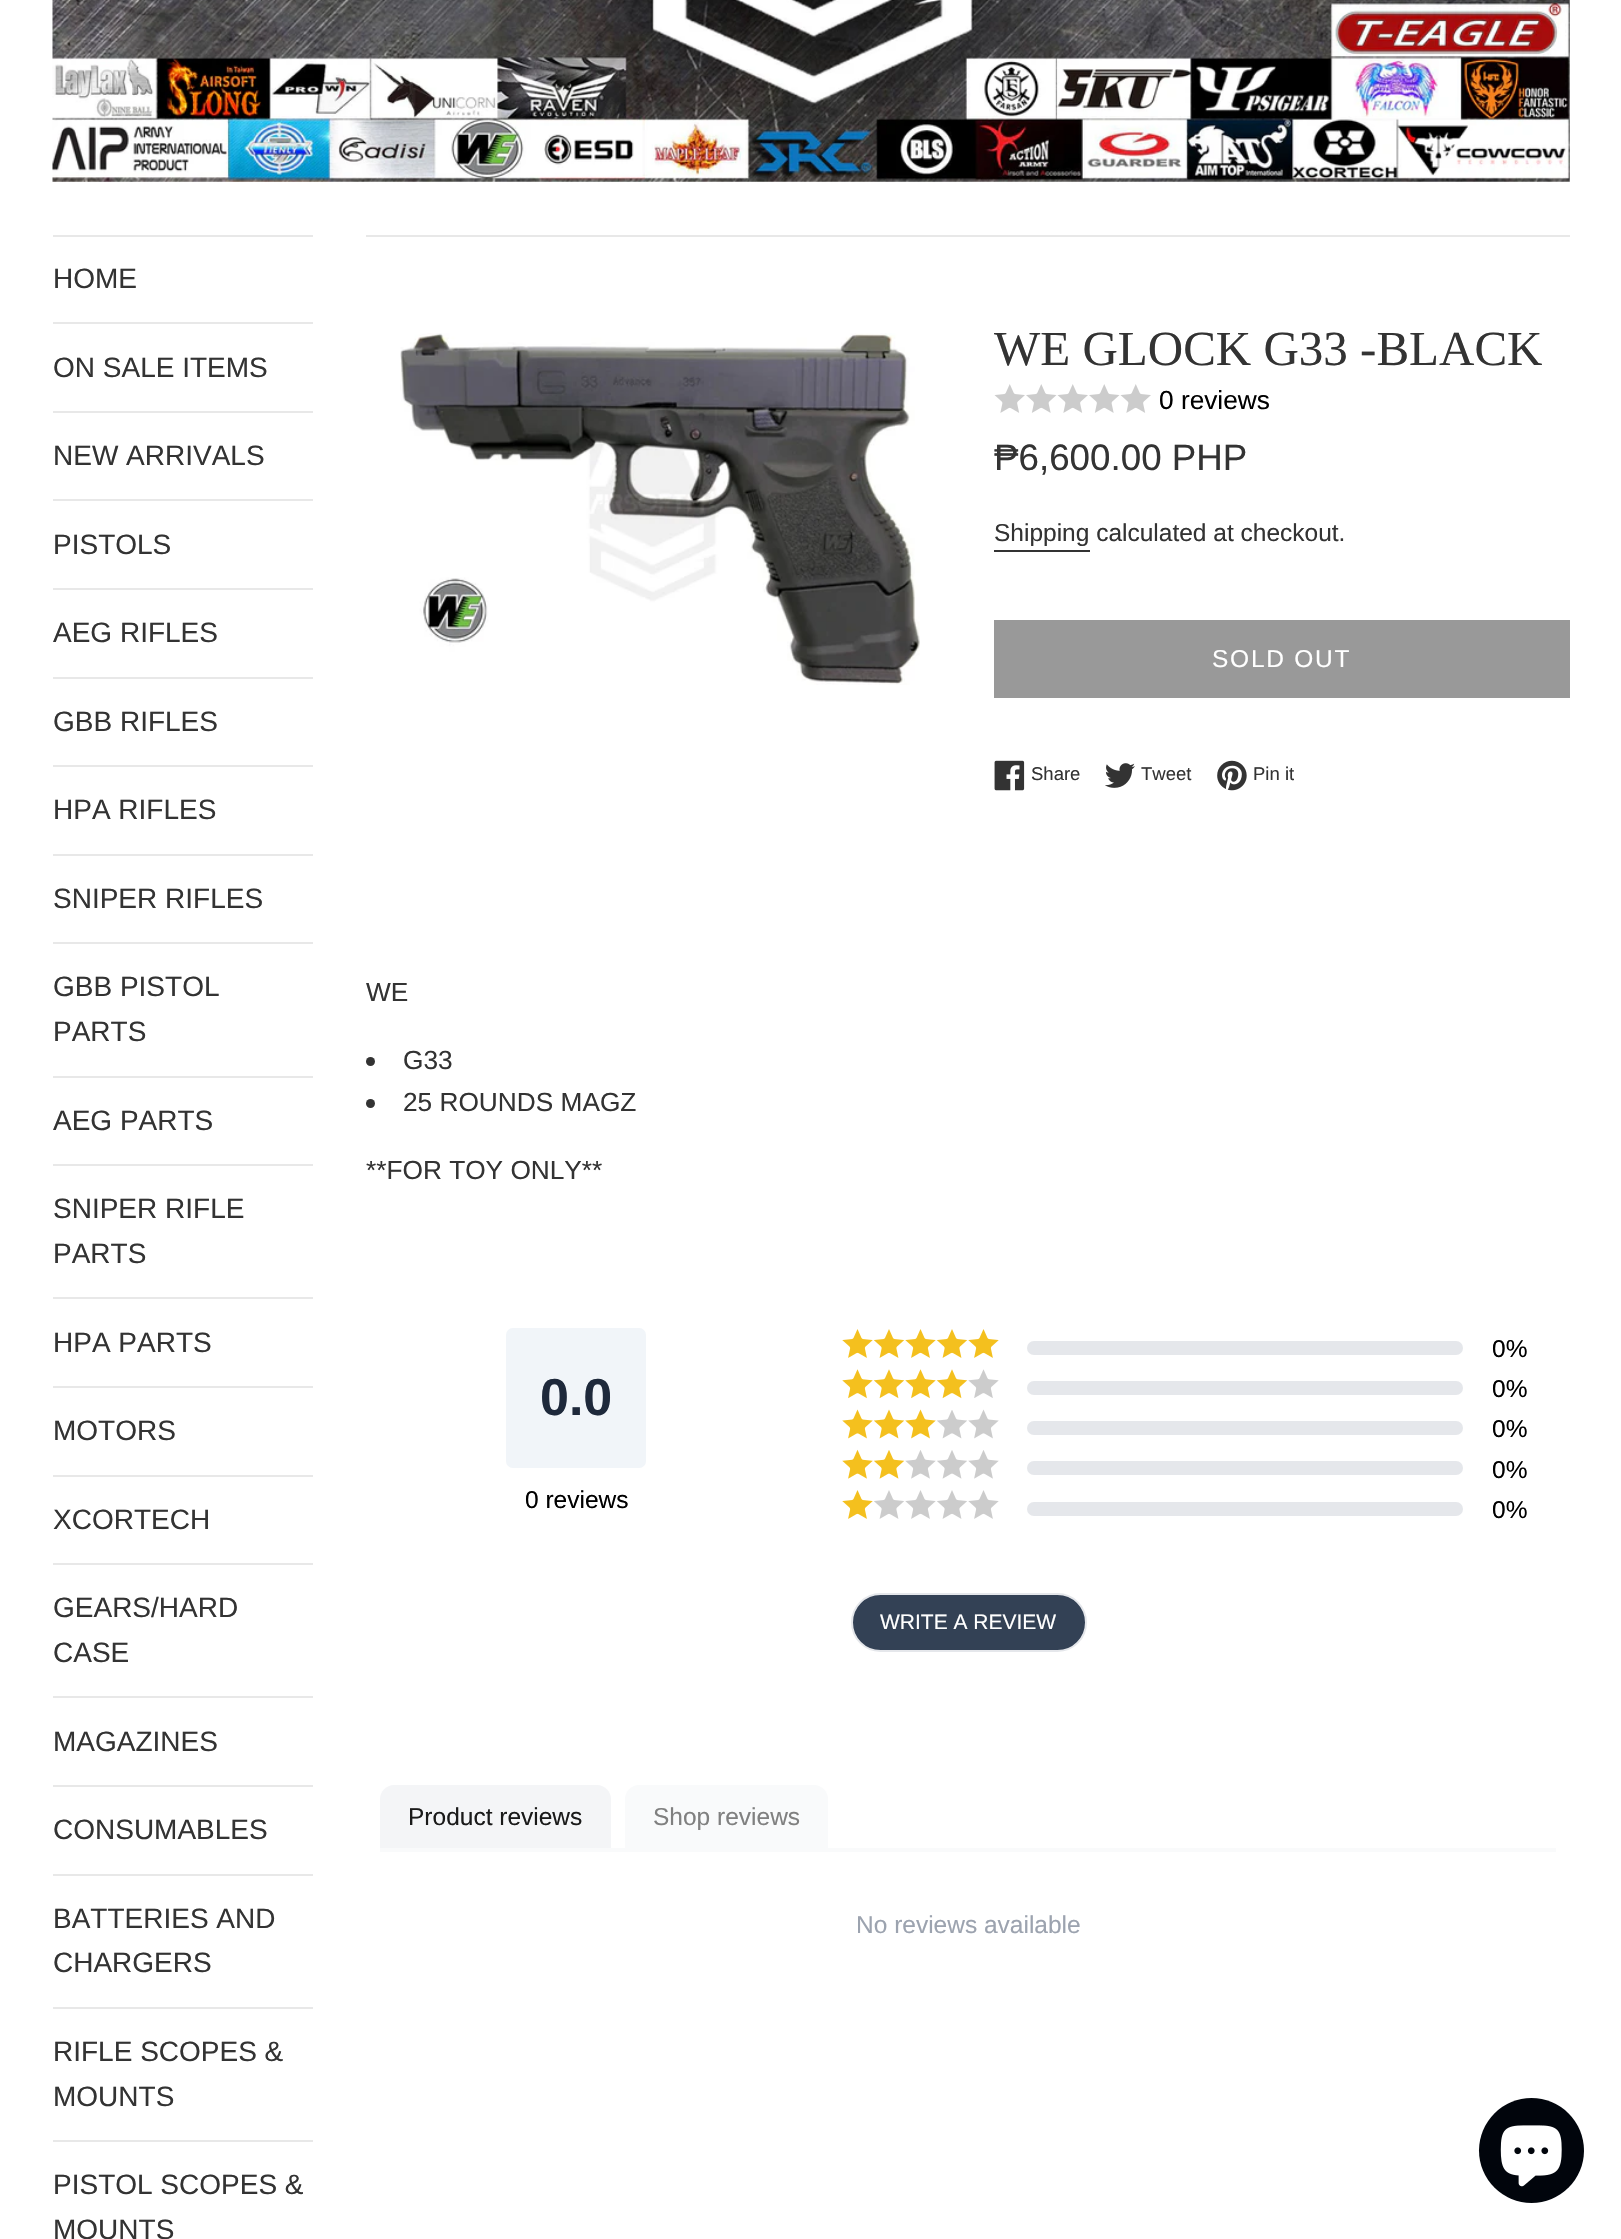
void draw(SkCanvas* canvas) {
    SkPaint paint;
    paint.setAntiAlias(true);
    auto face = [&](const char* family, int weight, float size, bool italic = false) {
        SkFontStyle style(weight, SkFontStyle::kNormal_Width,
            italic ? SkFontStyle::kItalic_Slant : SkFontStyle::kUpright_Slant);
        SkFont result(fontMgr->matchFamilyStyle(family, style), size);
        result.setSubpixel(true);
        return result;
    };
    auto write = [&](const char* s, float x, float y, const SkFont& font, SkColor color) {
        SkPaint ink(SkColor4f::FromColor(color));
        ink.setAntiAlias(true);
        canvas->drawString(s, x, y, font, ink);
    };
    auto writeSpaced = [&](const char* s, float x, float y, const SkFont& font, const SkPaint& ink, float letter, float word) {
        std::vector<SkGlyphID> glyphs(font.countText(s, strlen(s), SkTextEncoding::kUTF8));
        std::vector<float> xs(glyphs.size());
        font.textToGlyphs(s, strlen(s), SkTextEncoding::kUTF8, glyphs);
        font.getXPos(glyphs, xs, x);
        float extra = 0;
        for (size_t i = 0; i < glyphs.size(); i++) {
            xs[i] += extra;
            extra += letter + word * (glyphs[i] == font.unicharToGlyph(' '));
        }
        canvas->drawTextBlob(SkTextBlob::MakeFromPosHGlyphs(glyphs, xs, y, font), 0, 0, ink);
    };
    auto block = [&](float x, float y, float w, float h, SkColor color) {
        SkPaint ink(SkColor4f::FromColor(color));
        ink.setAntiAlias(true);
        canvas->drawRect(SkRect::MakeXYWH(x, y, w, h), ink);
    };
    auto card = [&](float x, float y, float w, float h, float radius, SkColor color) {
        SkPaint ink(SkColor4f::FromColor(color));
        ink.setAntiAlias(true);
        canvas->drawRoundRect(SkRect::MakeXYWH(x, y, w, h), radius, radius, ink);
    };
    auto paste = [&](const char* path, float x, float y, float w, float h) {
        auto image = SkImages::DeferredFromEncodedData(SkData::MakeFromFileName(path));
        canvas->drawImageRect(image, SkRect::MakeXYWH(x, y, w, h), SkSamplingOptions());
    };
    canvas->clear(SK_ColorWHITE);
    paste("pic1.png", 52, 0, 1518, 182);
    block(53, 235, 260, 2, SkColorSetRGB(232, 232, 232));
    block(53, 322, 260, 2, SkColorSetRGB(232, 232, 232));
    auto kFont1 = face("Liberation Sans", 400, 28);
    write("HOME", 53, 288, kFont1, SkColorSetRGB(51, 51, 51));
    block(53, 411, 260, 2, SkColorSetRGB(232, 232, 232));
    write("ON SALE ITEMS", 53, 377, kFont1, SkColorSetRGB(51, 51, 51));
    block(53, 499, 260, 2, SkColorSetRGB(232, 232, 232));
    write("NEW ARRIVALS", 53, 465, kFont1, SkColorSetRGB(51, 51, 51));
    block(53, 588, 260, 2, SkColorSetRGB(232, 232, 232));
    write("PISTOLS", 53, 554, kFont1, SkColorSetRGB(51, 51, 51));
    block(53, 677, 260, 2, SkColorSetRGB(232, 232, 232));
    write("AEG RIFLES", 53, 642, kFont1, SkColorSetRGB(51, 51, 51));
    block(53, 765, 260, 2, SkColorSetRGB(232, 232, 232));
    write("GBB RIFLES", 53, 731, kFont1, SkColorSetRGB(51, 51, 51));
    block(53, 854, 260, 2, SkColorSetRGB(232, 232, 232));
    write("HPA RIFLES", 53, 819, kFont1, SkColorSetRGB(51, 51, 51));
    block(53, 942, 260, 2, SkColorSetRGB(232, 232, 232));
    write("SNIPER RIFLES", 53, 908, kFont1, SkColorSetRGB(51, 51, 51));
    block(53, 1076, 260, 2, SkColorSetRGB(232, 232, 232));
    write("GBB PISTOL", 53, 996, kFont1, SkColorSetRGB(51, 51, 51));
    write("PARTS", 53, 1041, kFont1, SkColorSetRGB(51, 51, 51));
    block(53, 1164, 260, 2, SkColorSetRGB(232, 232, 232));
    write("AEG PARTS", 53, 1130, kFont1, SkColorSetRGB(51, 51, 51));
    block(53, 1297, 260, 2, SkColorSetRGB(232, 232, 232));
    write("SNIPER RIFLE", 53, 1218, kFont1, SkColorSetRGB(51, 51, 51));
    write("PARTS", 53, 1263, kFont1, SkColorSetRGB(51, 51, 51));
    block(53, 1386, 260, 2, SkColorSetRGB(232, 232, 232));
    write("HPA PARTS", 53, 1352, kFont1, SkColorSetRGB(51, 51, 51));
    block(53, 1475, 260, 2, SkColorSetRGB(232, 232, 232));
    write("MOTORS", 53, 1440, kFont1, SkColorSetRGB(51, 51, 51));
    block(53, 1563, 260, 2, SkColorSetRGB(232, 232, 232));
    write("XCORTECH", 53, 1529, kFont1, SkColorSetRGB(51, 51, 51));
    block(53, 1696, 260, 2, SkColorSetRGB(232, 232, 232));
    write("GEARS/HARD", 53, 1617, kFont1, SkColorSetRGB(51, 51, 51));
    write("CASE", 53, 1662, kFont1, SkColorSetRGB(51, 51, 51));
    block(53, 1785, 260, 2, SkColorSetRGB(232, 232, 232));
    write("MAGAZINES", 53, 1751, kFont1, SkColorSetRGB(51, 51, 51));
    block(53, 1874, 260, 2, SkColorSetRGB(232, 232, 232));
    write("CONSUMABLES", 53, 1839, kFont1, SkColorSetRGB(51, 51, 51));
    block(53, 2007, 260, 2, SkColorSetRGB(232, 232, 232));
    write("BATTERIES AND", 53, 1928, kFont1, SkColorSetRGB(51, 51, 51));
    write("CHARGERS", 53, 1972, kFont1, SkColorSetRGB(51, 51, 51));
    block(53, 2140, 260, 2, SkColorSetRGB(232, 232, 232));
    write("RIFLE SCOPES &", 53, 2061, kFont1, SkColorSetRGB(51, 51, 51));
    write("MOUNTS", 53, 2106, kFont1, SkColorSetRGB(51, 51, 51));
    write("PISTOL SCOPES &", 53, 2194, kFont1, SkColorSetRGB(51, 51, 51));
    write("MOUNTS", 53, 2239, kFont1, SkColorSetRGB(51, 51, 51));
    block(366, 235, 1204, 2, SkColorSetRGB(232, 232, 232));
    paste("pic2.png", 400, 333, 520, 352);
    auto kFont2 = face("Liberation Serif", 400, 49);
    write("WE GLOCK G33 -BLACK", 994, 365, kFont2, SkColorSetRGB(51, 51, 51));
    paste("pic3.png", 994, 384, 31, 29);
    paste("pic4.png", 1026, 384, 31, 29);
    paste("pic3.png", 1057, 384, 31, 29);
    paste("pic4.png", 1089, 384, 31, 29);
    paste("pic3.png", 1120, 384, 31, 29);
    auto kFont3 = face("Liberation Sans", 400, 26.25f);
    write("0 reviews", 1159, 409, kFont3, SK_ColorBLACK);
    auto kFont4 = face("Liberation Sans", 400, 36.75f);
    write("₱6,600.00 PHP", 994, 470, kFont4, SkColorSetRGB(51, 51, 51));
    auto kFont5 = face("Liberation Sans", 400, 24.5f);
    write("Shipping calculated at checkout.", 994, 541, kFont5, SkColorSetRGB(51, 51, 51));
    block(994, 550, 96, 2, SkColorSetRGB(51, 51, 51));
    block(994, 620, 576, 78, SkColorSetRGB(153, 153, 153));
    paint.setColor(SK_ColorWHITE);
    writeSpaced("SOLD OUT", 1212, 667, kFont5, paint, 1.75f, 0);
    paste("pic5.png", 994, 760, 31, 31);
    auto kFont6 = face("Liberation Sans", 400, 18.5f);
    write("Share", 1031, 780, kFont6, SkColorSetRGB(51, 51, 51));
    paste("pic6.png", 1105, 763, 30, 25);
    write("Tweet", 1141, 780, kFont6, SkColorSetRGB(51, 51, 51));
    paste("pic7.png", 1217, 760, 30, 31);
    write("Pin it", 1253, 780, kFont6, SkColorSetRGB(51, 51, 51));
    write("WE", 366, 1001, kFont3, SkColorSetRGB(51, 51, 51));
    paint.setColor(SkColorSetRGB(51, 51, 51));
    canvas->drawCircle(370.5f, 1061.5f, 4.5f, paint);
    write("G33", 403, 1069, kFont3, SkColorSetRGB(51, 51, 51));
    canvas->drawCircle(370.5f, 1103.5f, 4.5f, paint);
    write("25 ROUNDS MAGZ", 403, 1111, kFont3, SkColorSetRGB(51, 51, 51));
    write("**FOR TOY ONLY**", 366, 1179, kFont3, SkColorSetRGB(51, 51, 51));
    card(506, 1328, 140, 140, 7, SkColorSetRGB(241, 245, 249));
    auto kFont7 = face("Liberation Sans", 700, 52);
    write("0.0", 540, 1415, kFont7, SkColorSetRGB(30, 41, 59));
    write("0 reviews", 525, 1508, kFont5, SK_ColorBLACK);
    paste("pic8.png", 842, 1329, 31, 29);
    paste("pic9.png", 873, 1329, 32, 29);
    paste("pic8.png", 905, 1329, 31, 29);
    paste("pic9.png", 936, 1329, 32, 29);
    paste("pic8.png", 968, 1329, 31, 29);
    card(1027, 1341, 436, 14, 7, SkColorSetRGB(229, 231, 235));
    write("0%", 1492, 1357, kFont5, SK_ColorBLACK);
    paste("pic10.png", 842, 1369, 31, 30);
    paste("pic11.png", 873, 1369, 32, 30);
    paste("pic10.png", 905, 1369, 31, 30);
    paste("pic11.png", 936, 1369, 32, 30);
    paste("pic12.png", 968, 1369, 31, 29);
    card(1027, 1381, 436, 14, 7, SkColorSetRGB(229, 231, 235));
    write("0%", 1492, 1397, kFont5, SK_ColorBLACK);
    paste("pic13.png", 842, 1409, 31, 30);
    paste("pic14.png", 873, 1409, 32, 30);
    paste("pic13.png", 905, 1409, 31, 30);
    paste("pic15.png", 937, 1410, 30, 29);
    paste("pic16.png", 968, 1409, 31, 30);
    card(1027, 1421, 436, 14, 7, SkColorSetRGB(229, 231, 235));
    write("0%", 1492, 1437, kFont5, SK_ColorBLACK);
    paste("pic17.png", 842, 1449, 31, 30);
    paste("pic18.png", 873, 1450, 32, 29);
    paste("pic19.png", 905, 1450, 31, 29);
    paste("pic20.png", 937, 1450, 30, 29);
    paste("pic19.png", 968, 1450, 31, 29);
    card(1027, 1461, 436, 14, 7, SkColorSetRGB(229, 231, 235));
    write("0%", 1492, 1478, kFont5, SK_ColorBLACK);
    paste("pic8.png", 842, 1490, 31, 29);
    paste("pic21.png", 874, 1490, 30, 29);
    paste("pic22.png", 905, 1490, 31, 29);
    paste("pic21.png", 937, 1490, 30, 29);
    paste("pic22.png", 968, 1490, 31, 29);
    card(1027, 1502, 436, 14, 7, SkColorSetRGB(229, 231, 235));
    write("0%", 1492, 1518, kFont5, SK_ColorBLACK);
    paint.setColor(SkColorSetRGB(51, 65, 85));
    canvas->drawRoundRect(SkRect::MakeXYWH(852, 1594, 234, 57), 28.5f, 28.5f, paint);
    paint.setStyle(SkPaint::kStroke_Style);
    paint.setStrokeWidth(2);
    paint.setColor(SkColorSetRGB(229, 231, 235));
    canvas->drawRoundRect(SkRect::MakeXYWH(852, 1594, 234, 57), 28.5f, 28.5f, paint);
    auto kFont8 = face("Liberation Sans", 400, 21);
    write("WRITE A REVIEW", 880, 1629, kFont8, SK_ColorWHITE);
    block(380, 1848, 1176, 4, SkColorSetRGB(249, 250, 251));
    paint.setStyle(SkPaint::kFill_Style);
    paint.setColor(SkColorSetRGB(244, 245, 247));
    canvas->drawPath(SkPathBuilder().moveTo(394, 1785).lineTo(597, 1785).cubicTo(604.5f, 1785, 611, 1791.5f, 611, 1799).lineTo(611, 1848).lineTo(380, 1848).lineTo(380, 1799).cubicTo(380, 1791.5f, 386.5f, 1785, 394, 1785).close().detach(), paint);
    write("Product reviews", 408, 1825, kFont5, SkColorSetRGB(26, 26, 26));
    paint.setColor(SkColorSetRGB(249, 250, 251));
    canvas->drawPath(SkPathBuilder().moveTo(639, 1785).lineTo(814, 1785).cubicTo(821.5f, 1785, 828, 1791.5f, 828, 1799).lineTo(828, 1848).lineTo(625, 1848).lineTo(625, 1799).cubicTo(625, 1791.5f, 631.5f, 1785, 639, 1785).close().detach(), paint);
    write("Shop reviews", 653, 1825, kFont5, SkColorSetRGB(128, 128, 128));
    write("No reviews available", 856, 1933, kFont5, SkColorSetRGB(156, 163, 175));
    paint.setColor(SkColorSetRGB(1, 5, 12));
    canvas->drawCircle(1531.5f, 2150.5f, 52.5f, paint);
    paste("pic23.png", 1500, 2125, 62, 62);
}
